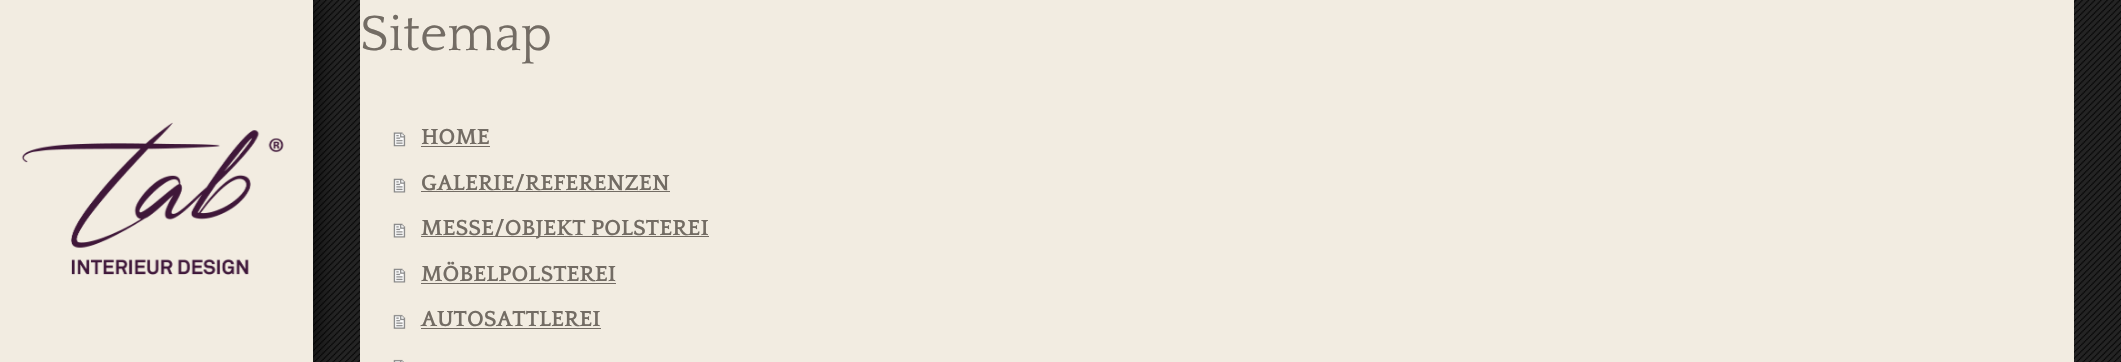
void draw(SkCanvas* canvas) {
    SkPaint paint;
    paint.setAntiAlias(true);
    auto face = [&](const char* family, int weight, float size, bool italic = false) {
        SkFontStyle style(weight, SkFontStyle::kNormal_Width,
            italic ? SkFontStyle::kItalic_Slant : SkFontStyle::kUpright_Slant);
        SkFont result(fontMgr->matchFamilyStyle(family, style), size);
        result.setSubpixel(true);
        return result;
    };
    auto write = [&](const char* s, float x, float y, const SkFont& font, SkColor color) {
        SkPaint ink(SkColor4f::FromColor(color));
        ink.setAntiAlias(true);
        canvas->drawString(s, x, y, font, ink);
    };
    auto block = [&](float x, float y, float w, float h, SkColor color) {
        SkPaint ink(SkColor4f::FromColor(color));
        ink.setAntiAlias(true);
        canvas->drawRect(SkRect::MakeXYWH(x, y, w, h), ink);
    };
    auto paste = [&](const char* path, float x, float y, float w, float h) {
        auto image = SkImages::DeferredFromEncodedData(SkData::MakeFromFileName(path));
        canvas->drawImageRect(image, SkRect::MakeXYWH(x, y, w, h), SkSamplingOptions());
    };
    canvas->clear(SkColorSetRGB(36, 36, 36));
    paste("pic1.png", 313, 0, 1808, 362);
    paint.setColor(SK_ColorBLACK);
    paint.setMaskFilter(SkMaskFilter::MakeBlur(kNormal_SkBlurStyle, 12.5f));
    canvas->drawRect(SkRect::MakeXYWH(0, 0, 313, 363), paint);
    paint.setMaskFilter(nullptr);
    block(0, 0, 313, 362, SkColorSetRGB(242, 236, 225));
    paste("pic2.png", 21, 122, 263, 153);
    block(360, 0, 1714, 362, SkColorSetRGB(242, 236, 225));
    auto kFont1 = face("Quattrocento", 400, 52);
    write("Sitemap", 360, 50, kFont1, SkColorSetRGB(115, 108, 100));
    paste("pic3.png", 393, 132, 13, 15);
    auto kFont2 = face("Quattrocento", 700, 22.75f);
    write("HOME", 421, 144, kFont2, SkColorSetRGB(115, 108, 100));
    block(421, 146, 69, 1, SkColorSetRGB(115, 108, 100));
    paste("pic4.png", 393, 178, 13, 15);
    block(421, 191, 249, 1, SkColorSetRGB(115, 108, 100));
    write("GALERIE/REFERENZEN", 421, 190, kFont2, SkColorSetRGB(115, 108, 100));
    paste("pic4.png", 393, 223, 13, 15);
    block(421, 236, 288, 1, SkColorSetRGB(115, 108, 100));
    write("MESSE/OBJEKT POLSTEREI", 421, 235, kFont2, SkColorSetRGB(115, 108, 100));
    paste("pic4.png", 393, 268, 13, 15);
    write("MÖBELPOLSTEREI", 421, 281, kFont2, SkColorSetRGB(115, 108, 100));
    block(421, 283, 195, 1, SkColorSetRGB(115, 108, 100));
    paste("pic5.png", 393, 314, 13, 15);
    write("AUTOSATTLEREI", 421, 326, kFont2, SkColorSetRGB(115, 108, 100));
    block(421, 328, 180, 1, SkColorSetRGB(115, 108, 100));
    paste("pic6.png", 393, 359, 11, 3);
}
